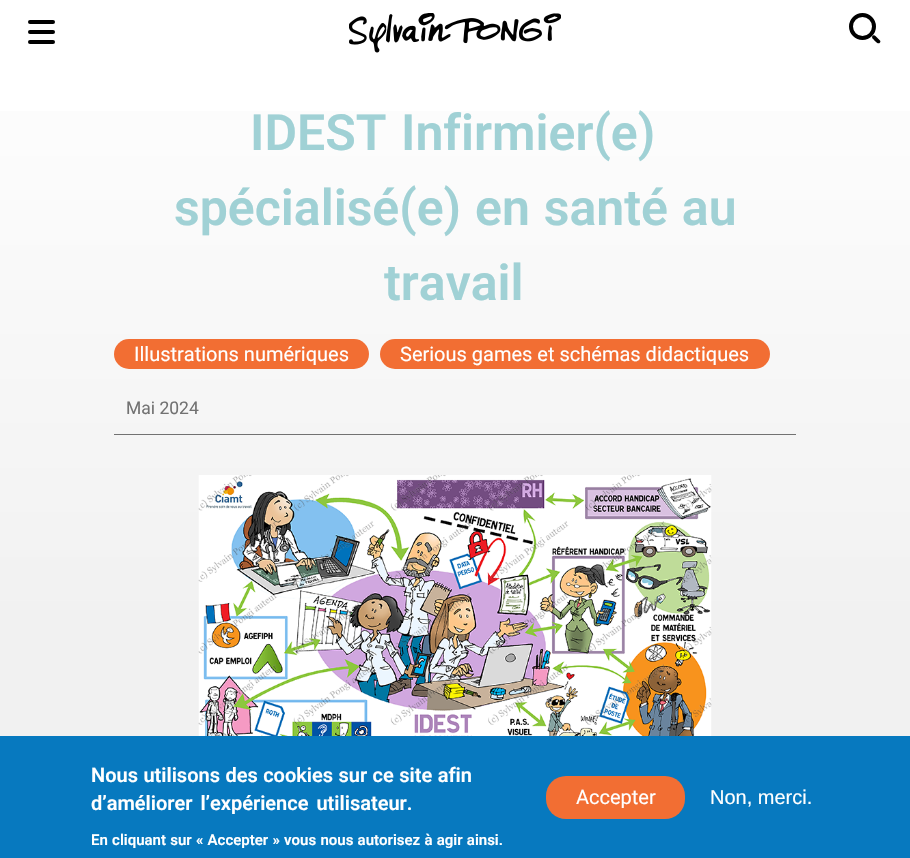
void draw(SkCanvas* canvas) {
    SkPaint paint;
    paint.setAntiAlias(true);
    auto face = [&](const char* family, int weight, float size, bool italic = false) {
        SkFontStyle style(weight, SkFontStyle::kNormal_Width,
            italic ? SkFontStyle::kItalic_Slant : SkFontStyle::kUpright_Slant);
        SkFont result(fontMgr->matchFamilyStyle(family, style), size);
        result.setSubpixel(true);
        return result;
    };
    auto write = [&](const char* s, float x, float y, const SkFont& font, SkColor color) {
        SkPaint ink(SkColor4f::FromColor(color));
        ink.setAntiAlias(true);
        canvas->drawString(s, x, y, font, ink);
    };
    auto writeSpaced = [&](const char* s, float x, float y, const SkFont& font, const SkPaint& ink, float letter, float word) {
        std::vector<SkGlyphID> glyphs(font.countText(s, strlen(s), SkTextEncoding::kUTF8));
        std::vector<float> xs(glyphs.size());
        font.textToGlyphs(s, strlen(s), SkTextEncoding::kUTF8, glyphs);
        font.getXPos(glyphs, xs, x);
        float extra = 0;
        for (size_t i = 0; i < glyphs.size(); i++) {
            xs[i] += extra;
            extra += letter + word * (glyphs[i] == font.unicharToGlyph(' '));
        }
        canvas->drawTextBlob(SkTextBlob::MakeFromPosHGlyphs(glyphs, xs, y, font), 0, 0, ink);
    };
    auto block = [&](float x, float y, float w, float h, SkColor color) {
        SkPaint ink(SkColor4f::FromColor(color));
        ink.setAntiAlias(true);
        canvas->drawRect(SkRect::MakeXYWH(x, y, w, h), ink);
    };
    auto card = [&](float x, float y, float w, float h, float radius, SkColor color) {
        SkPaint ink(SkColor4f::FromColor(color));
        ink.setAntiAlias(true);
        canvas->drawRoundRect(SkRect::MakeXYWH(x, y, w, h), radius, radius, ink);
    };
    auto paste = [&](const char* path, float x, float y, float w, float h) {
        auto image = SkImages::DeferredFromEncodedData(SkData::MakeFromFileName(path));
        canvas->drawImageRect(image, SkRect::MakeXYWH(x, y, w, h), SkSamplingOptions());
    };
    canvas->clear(SK_ColorWHITE);
    card(28, 20, 27, 4, 2, SK_ColorBLACK);
    card(28, 30, 27, 4, 2, SK_ColorBLACK);
    card(28, 40, 27, 4, 2, SK_ColorBLACK);
    paste("pic1.png", 349, 13, 212, 40);
    paint.setColor(SK_ColorBLACK);
    canvas->drawPath(SkPathBuilder().moveTo(875.5f, 36).lineTo(880, 40.5f).cubicTo(880.5f, 41, 880.5f, 42, 880, 42.5f).cubicTo(878, 45.5f, 874, 39.5f, 872.5f, 38.5f).cubicTo(871, 36.5f, 873.5f, 34, 875.5f, 36).close().detach(), paint);
    paint.setStyle(SkPaint::kStroke_Style);
    paint.setStrokeWidth(4);
    canvas->drawCircle(862.5f, 26.5f, 11.5f, paint);
    paint.setStyle(SkPaint::kFill_Style);
    {
        const SkColor colors[] = {SK_ColorWHITE, SkColorSetRGB(241, 241, 241)};
        const float stops[] = {0, 0.4f};
        const SkPoint ends[] = {{455, 0}, {455, 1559}};
        paint.setShader(SkGradientShader::MakeLinear(ends, colors, stops, 2, SkTileMode::kClamp));
        paint.setAlpha(255);
    }
    canvas->drawRect(SkRect::MakeXYWH(0, 111, 910, 625), paint);
    auto kFont1 = face("Roboto", 600, 50);
    write("IDEST", 250, 150, kFont1, SkColorSetRGB(160, 209, 213));
    write("Infirmier(e)", 401, 150, kFont1, SkColorSetRGB(160, 209, 213));
    paint.setShader(nullptr);
    paint.setColor(SkColorSetRGB(160, 209, 213));
    writeSpaced("spécialisé(e) en santé au", 174, 225, kFont1, paint, 0, 1.5f);
    write("travail", 384, 300, kFont1, SkColorSetRGB(160, 209, 213));
    card(114, 339, 255, 30, 15, SkColorSetRGB(242, 110, 51));
    auto kFont2 = face("Roboto", 400, 20);
    write("Illustrations numériques", 134, 361, kFont2, SK_ColorWHITE);
    card(380, 339, 390, 30, 15, SkColorSetRGB(242, 110, 51));
    write("Serious games et schémas didactiques", 400, 361, kFont2, SK_ColorWHITE);
    block(114, 434, 682, 1, SkColorSetRGB(114, 114, 114));
    auto kFont3 = face("Roboto", 400, 17.5f);
    write("Mai 2024", 126, 414, kFont3, SkColorSetRGB(114, 114, 114));
    paste("pic2.png", 198, 475, 514, 261);
    block(0, 736, 910, 122, SkColorSetRGB(7, 121, 191));
    auto kFont4 = face("Roboto", 600, 20);
    paint.setColor(SK_ColorWHITE);
    writeSpaced("Nous utilisons des cookies sur ce site afin", 91, 782, kFont4, paint, 0, 0.5f);
    writeSpaced("d’améliorer l’expérience utilisateur.", 91, 810, kFont4, paint, 0, 3);
    auto kFont5 = face("Roboto", 600, 15);
    writeSpaced("En cliquant sur « Accepter » vous nous autorisez à agir ainsi.", 91, 845, kFont5, paint, 0, 0.5f);
    card(546, 776, 139, 43, 20, SkColorSetRGB(242, 110, 51));
    write("Accepter", 576, 804, kFont2, SK_ColorWHITE);
    auto kFont6 = face("Liberation Sans", 400, 20);
    write("Non, merci.", 710, 804, kFont6, SK_ColorWHITE);
}
